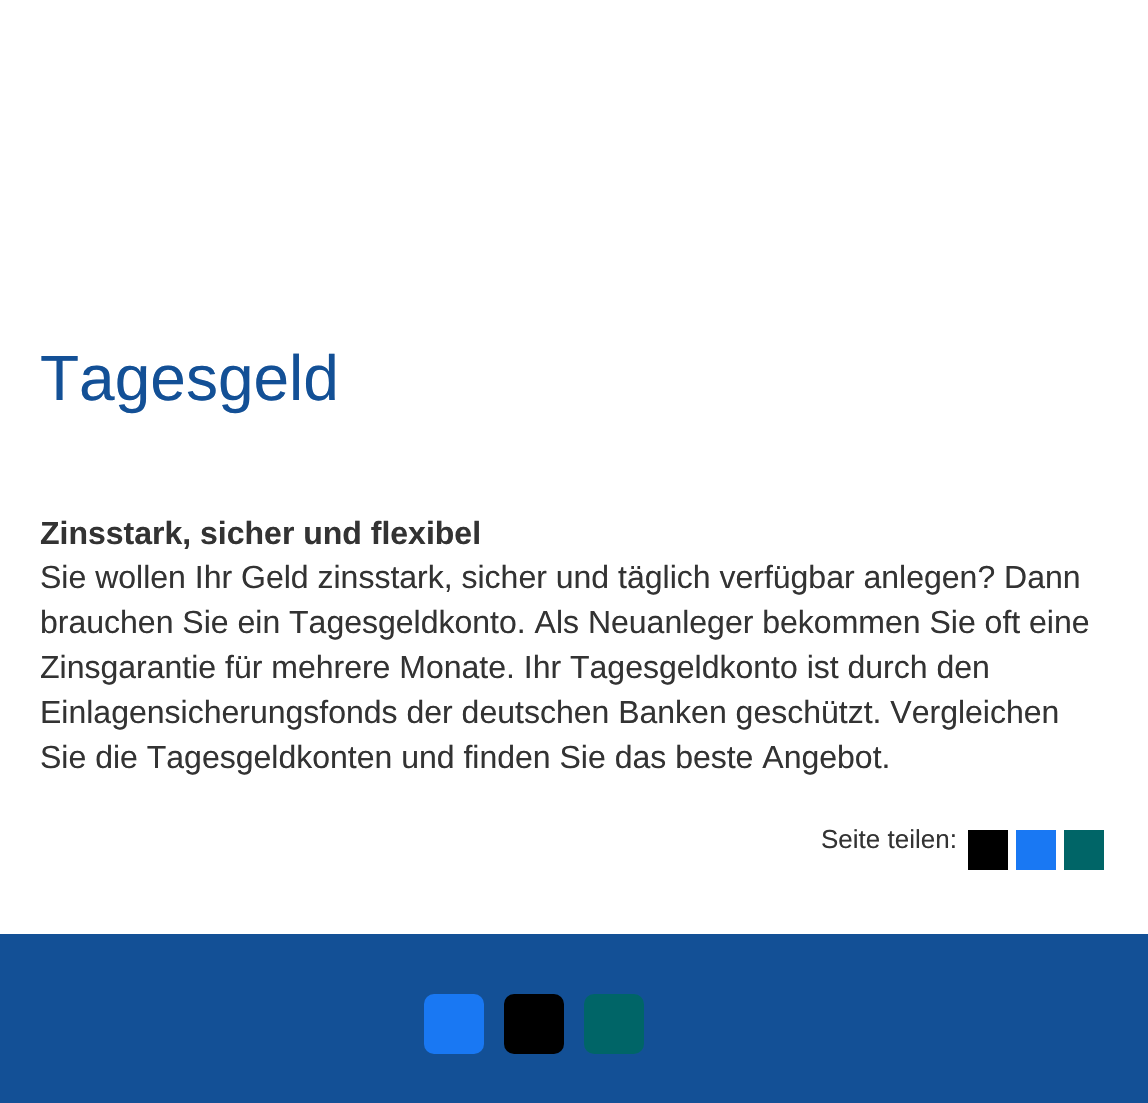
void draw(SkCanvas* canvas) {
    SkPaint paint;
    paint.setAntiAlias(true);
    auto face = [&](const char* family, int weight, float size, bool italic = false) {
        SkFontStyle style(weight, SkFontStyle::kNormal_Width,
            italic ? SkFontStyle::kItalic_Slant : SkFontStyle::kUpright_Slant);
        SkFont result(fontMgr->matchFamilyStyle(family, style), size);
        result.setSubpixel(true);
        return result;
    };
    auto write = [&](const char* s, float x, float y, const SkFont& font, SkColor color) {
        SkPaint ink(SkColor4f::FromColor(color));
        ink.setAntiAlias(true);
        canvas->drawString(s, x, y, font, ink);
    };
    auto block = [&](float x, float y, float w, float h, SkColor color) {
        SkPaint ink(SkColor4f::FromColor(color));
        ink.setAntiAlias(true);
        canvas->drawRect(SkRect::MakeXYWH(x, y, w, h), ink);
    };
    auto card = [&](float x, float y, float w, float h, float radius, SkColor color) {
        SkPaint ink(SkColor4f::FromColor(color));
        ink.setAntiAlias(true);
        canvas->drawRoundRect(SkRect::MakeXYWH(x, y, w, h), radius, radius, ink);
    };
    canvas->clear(SK_ColorWHITE);
    auto kFont1 = face("Liberation Sans", 400, 64);
    write("Tagesgeld", 40, 400, kFont1, SkColorSetRGB(19, 80, 150));
    auto kFont2 = face("Liberation Sans", 700, 32);
    write("Zinsstark, sicher und flexibel", 40, 544, kFont2, SkColorSetRGB(51, 51, 51));
    auto kFont3 = face("Liberation Sans", 400, 32);
    write("Sie wollen Ihr Geld zinsstark, sicher und täglich verfügbar anlegen? Dann", 40, 588, kFont3, SkColorSetRGB(51, 51, 51));
    write("brauchen Sie ein Tagesgeldkonto. Als Neuanleger bekommen Sie oft eine", 40, 633, kFont3, SkColorSetRGB(51, 51, 51));
    write("Zinsgarantie für mehrere Monate. Ihr Tagesgeldkonto ist durch den", 40, 678, kFont3, SkColorSetRGB(51, 51, 51));
    write("Einlagensicherungsfonds der deutschen Banken geschützt. Vergleichen", 40, 723, kFont3, SkColorSetRGB(51, 51, 51));
    write("Sie die Tagesgeldkonten und finden Sie das beste Angebot.", 40, 768, kFont3, SkColorSetRGB(51, 51, 51));
    auto kFont4 = face("Liberation Sans", 400, 26);
    write("Seite teilen:", 821, 848, kFont4, SkColorSetRGB(51, 51, 51));
    block(968, 830, 40, 40, SK_ColorBLACK);
    block(1016, 830, 40, 40, SkColorSetRGB(25, 120, 243));
    block(1064, 830, 40, 40, SkColorSetRGB(0, 101, 103));
    block(0, 934, 1148, 169, SkColorSetRGB(19, 80, 150));
    card(424, 994, 60, 60, 10, SkColorSetRGB(25, 120, 243));
    card(504, 994, 60, 60, 10, SK_ColorBLACK);
    card(584, 994, 60, 60, 10, SkColorSetRGB(0, 101, 103));
}
